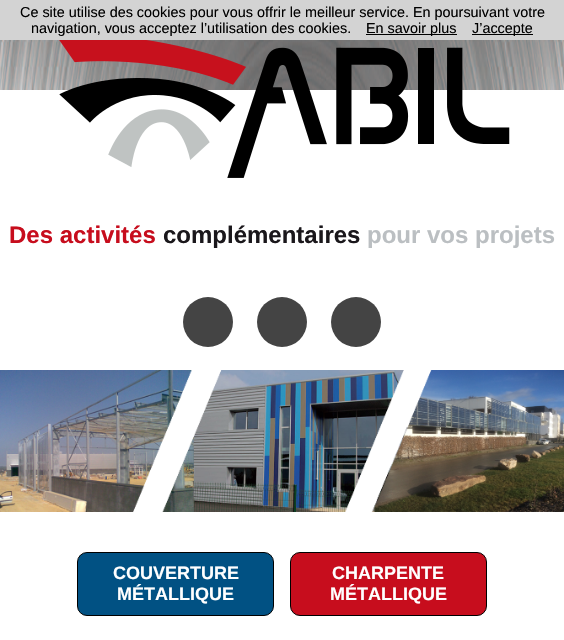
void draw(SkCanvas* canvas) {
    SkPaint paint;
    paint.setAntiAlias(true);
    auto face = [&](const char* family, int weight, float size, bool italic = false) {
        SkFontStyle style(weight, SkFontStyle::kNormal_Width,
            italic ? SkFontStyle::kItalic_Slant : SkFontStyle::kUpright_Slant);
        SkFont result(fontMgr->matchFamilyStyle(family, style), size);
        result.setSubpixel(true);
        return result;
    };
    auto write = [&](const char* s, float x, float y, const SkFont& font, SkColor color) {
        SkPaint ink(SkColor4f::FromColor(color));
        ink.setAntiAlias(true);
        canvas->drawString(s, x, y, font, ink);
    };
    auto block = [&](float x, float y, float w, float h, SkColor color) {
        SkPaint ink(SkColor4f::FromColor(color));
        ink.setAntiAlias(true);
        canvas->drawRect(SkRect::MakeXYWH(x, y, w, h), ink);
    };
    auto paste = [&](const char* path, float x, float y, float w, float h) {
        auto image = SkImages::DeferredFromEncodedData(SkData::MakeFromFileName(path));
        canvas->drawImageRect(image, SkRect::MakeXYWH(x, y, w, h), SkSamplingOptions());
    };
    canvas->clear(SK_ColorWHITE);
    block(0, 0, 564, 40, SkColorSetRGB(211, 211, 211));
    auto kFont1 = face("Liberation Sans", 400, 14.4f);
    write("Ce site utilise des cookies pour vous offrir le meilleur service. En poursuivant votre", 20, 17, kFont1, SK_ColorBLACK);
    write("navigation, vous acceptez l’utilisation des cookies.", 31, 33, kFont1, SK_ColorBLACK);
    block(366, 34, 91, 1, SK_ColorBLACK);
    write("En savoir plus", 366, 33, kFont1, SK_ColorBLACK);
    block(472, 34, 61, 1, SK_ColorBLACK);
    write("J’accepte", 472, 33, kFont1, SK_ColorBLACK);
    paste("pic1.png", 0, 40, 564, 50);
    paste("pic2.png", 59, 40, 451, 138);
    auto kFont2 = face("Liberation Sans", 700, 24);
    write("Des activités", 9, 243, kFont2, SkColorSetRGB(199, 13, 29));
    write("complémentaires", 163, 243, kFont2, SkColorSetRGB(26, 23, 27));
    write("pour vos projets", 367, 243, kFont2, SkColorSetRGB(187, 191, 194));
    paint.setColor(SkColorSetRGB(68, 68, 68));
    canvas->drawCircle(208, 322, 25, paint);
    canvas->drawCircle(282, 322, 25, paint);
    canvas->drawCircle(356, 322, 25, paint);
    paste("pic3.png", 0, 370, 564, 142);
    paint.setColor(SkColorSetRGB(1, 81, 131));
    canvas->drawRoundRect(SkRect::MakeXYWH(77.5f, 552.5f, 196, 63), 9.5f, 9.5f, paint);
    paint.setStyle(SkPaint::kStroke_Style);
    paint.setStrokeWidth(1);
    paint.setColor(SK_ColorBLACK);
    canvas->drawRoundRect(SkRect::MakeXYWH(77.5f, 552.5f, 196, 63), 9.5f, 9.5f, paint);
    auto kFont3 = face("Liberation Sans", 700, 18);
    write("COUVERTURE", 113, 579, kFont3, SK_ColorWHITE);
    write("MÉTALLIQUE", 117, 600, kFont3, SK_ColorWHITE);
    paint.setStyle(SkPaint::kFill_Style);
    paint.setColor(SkColorSetRGB(199, 13, 29));
    canvas->drawRoundRect(SkRect::MakeXYWH(290.5f, 552.5f, 196, 63), 9.5f, 9.5f, paint);
    paint.setStyle(SkPaint::kStroke_Style);
    paint.setColor(SK_ColorBLACK);
    canvas->drawRoundRect(SkRect::MakeXYWH(290.5f, 552.5f, 196, 63), 9.5f, 9.5f, paint);
    write("CHARPENTE", 332, 579, kFont3, SK_ColorWHITE);
    write("MÉTALLIQUE", 330, 600, kFont3, SK_ColorWHITE);
}
